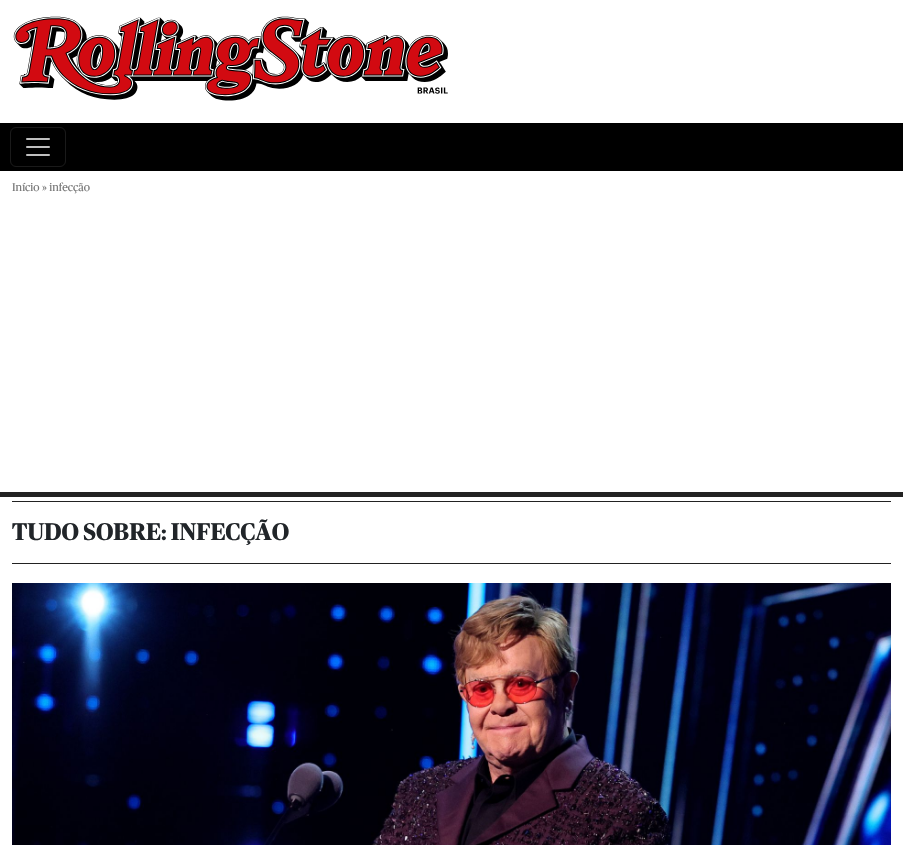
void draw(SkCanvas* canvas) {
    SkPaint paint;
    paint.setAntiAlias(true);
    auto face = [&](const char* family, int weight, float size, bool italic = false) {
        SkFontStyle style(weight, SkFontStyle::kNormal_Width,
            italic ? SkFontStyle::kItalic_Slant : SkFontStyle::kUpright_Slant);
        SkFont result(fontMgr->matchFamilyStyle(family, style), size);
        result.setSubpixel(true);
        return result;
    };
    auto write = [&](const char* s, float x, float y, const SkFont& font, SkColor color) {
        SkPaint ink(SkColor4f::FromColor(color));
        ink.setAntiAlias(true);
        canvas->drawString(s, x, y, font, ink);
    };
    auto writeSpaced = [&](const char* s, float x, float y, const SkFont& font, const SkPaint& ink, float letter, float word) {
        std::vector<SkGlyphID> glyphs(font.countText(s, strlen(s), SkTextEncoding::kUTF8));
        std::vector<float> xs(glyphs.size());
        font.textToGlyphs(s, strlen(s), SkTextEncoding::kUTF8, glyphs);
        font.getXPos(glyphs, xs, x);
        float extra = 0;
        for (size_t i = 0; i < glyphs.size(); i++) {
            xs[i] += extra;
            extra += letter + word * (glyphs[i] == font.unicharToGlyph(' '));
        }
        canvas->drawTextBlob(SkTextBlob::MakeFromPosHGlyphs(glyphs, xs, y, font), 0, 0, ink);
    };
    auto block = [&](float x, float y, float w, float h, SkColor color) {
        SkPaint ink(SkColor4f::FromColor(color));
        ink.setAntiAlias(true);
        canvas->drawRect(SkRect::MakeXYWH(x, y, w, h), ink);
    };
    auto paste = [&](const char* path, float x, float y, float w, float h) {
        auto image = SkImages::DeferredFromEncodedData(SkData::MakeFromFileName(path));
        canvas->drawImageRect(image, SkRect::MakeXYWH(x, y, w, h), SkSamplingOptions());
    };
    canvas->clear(SK_ColorWHITE);
    paste("pic1.png", 13, 16, 435, 85);
    block(0, 123, 903, 48, SK_ColorBLACK);
    paint.setStyle(SkPaint::kStroke_Style);
    paint.setStrokeWidth(1);
    paint.setColor(SkColorSetRGB(26, 26, 26));
    canvas->drawRoundRect(SkRect::MakeXYWH(10.5f, 127.5f, 55, 39), 5.5f, 5.5f, paint);
    paste("pic2.png", 26, 138, 24, 18);
    auto kFont1 = face("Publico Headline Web", 400, 11.25f);
    write("Início » infecção", 12, 191, kFont1, SkColorSetRGB(119, 119, 119));
    block(0, 492, 903, 5, SkColorSetRGB(34, 34, 34));
    block(12, 501, 879, 1, SkColorSetRGB(34, 34, 34));
    block(12, 563, 879, 1, SkColorSetRGB(34, 34, 34));
    auto kFont2 = face("Publico Headline Web", 700, 24);
    paint.setStyle(SkPaint::kFill_Style);
    paint.setColor(SkColorSetRGB(33, 37, 41));
    writeSpaced("TUDO SOBRE: INFECÇÃO", 12, 540, kFont2, paint, 0, -1);
    paste("pic3.png", 12, 583, 879, 262);
}
